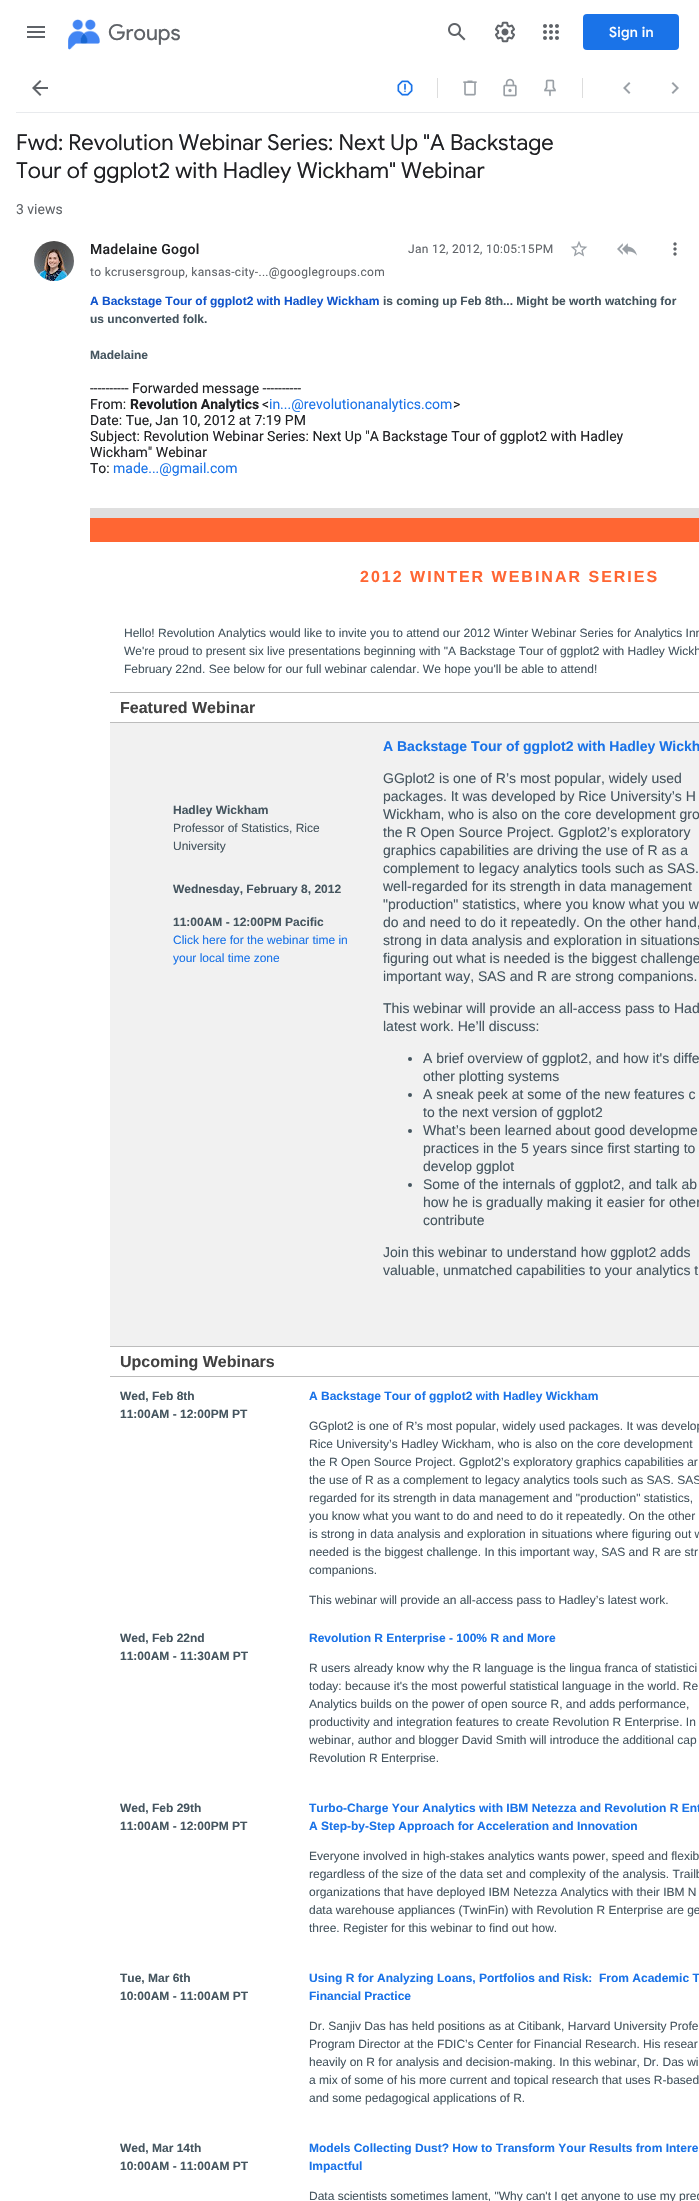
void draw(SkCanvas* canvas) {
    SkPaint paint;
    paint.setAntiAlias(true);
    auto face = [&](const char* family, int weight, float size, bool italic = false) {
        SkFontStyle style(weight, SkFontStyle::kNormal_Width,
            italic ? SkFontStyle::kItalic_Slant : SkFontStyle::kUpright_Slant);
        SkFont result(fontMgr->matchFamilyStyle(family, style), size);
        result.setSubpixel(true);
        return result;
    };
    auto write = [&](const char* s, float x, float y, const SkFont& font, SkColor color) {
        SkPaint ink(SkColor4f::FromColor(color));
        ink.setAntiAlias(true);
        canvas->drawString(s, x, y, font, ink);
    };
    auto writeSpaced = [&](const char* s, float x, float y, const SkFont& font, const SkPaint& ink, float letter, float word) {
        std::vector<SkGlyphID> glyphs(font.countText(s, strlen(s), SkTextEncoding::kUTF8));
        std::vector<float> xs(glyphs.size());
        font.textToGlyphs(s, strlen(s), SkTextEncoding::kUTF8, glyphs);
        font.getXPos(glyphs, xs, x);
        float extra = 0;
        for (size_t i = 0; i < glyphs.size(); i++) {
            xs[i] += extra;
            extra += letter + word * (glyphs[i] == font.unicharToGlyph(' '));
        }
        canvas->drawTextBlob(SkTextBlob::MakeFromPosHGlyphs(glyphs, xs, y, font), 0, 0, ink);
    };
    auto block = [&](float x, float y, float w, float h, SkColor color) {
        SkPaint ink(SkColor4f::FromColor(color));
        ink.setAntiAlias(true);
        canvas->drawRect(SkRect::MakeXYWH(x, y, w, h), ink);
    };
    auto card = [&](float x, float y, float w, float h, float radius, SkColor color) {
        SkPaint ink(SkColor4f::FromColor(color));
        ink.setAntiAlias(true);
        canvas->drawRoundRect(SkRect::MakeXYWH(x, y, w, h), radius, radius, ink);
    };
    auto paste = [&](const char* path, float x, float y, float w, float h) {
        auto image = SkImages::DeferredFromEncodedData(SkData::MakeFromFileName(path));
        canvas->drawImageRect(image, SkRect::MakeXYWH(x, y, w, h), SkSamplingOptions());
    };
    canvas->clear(SK_ColorWHITE);
    paste("pic1.png", 27, 26, 18, 12);
    paste("pic2.png", 68, 19, 32, 31);
    auto kFont1 = face("Product Sans", 400, 22);
    write("Groups", 108, 40, kFont1, SkColorSetRGB(95, 99, 104));
    paste("pic3.png", 448, 23, 18, 18);
    paste("pic4.png", 495, 21, 20, 22);
    paste("pic5.png", 543, 24, 16, 16);
    card(583, 14, 96, 36, 4, SkColorSetRGB(26, 115, 232));
    auto kFont2 = face("Google Sans", 500, 14);
    paint.setColor(SK_ColorWHITE);
    writeSpaced("Sign in", 609, 37, kFont2, paint, 0.25f, 0);
    block(16, 112, 683, 1, SkColorSetRGB(232, 234, 237));
    paste("pic6.png", 32, 80, 16, 16);
    paste("pic7.png", 397, 80, 16, 16);
    block(437, 78, 1, 20, SkColorSetRGB(221, 221, 221));
    paste("pic8.png", 463, 80, 14, 16);
    paste("pic9.png", 503, 78, 14, 19);
    paste("pic10.png", 544, 79, 12, 18);
    block(582, 78, 1, 20, SkColorSetRGB(221, 221, 221));
    paste("pic11.png", 623, 82, 8, 12);
    paste("pic12.png", 671, 82, 8, 12);
    auto kFont3 = face("Google Sans", 400, 22);
    write("Fwd: Revolution Webinar Series: Next Up \"A Backstage", 16, 150, kFont3, SkColorSetRGB(32, 33, 36));
    write("Tour of ggplot2 with Hadley Wickham\" Webinar", 16, 178, kFont3, SkColorSetRGB(32, 33, 36));
    auto kFont4 = face("Roboto", 400, 14);
    write("3 views", 16, 214, kFont4, SkColorSetRGB(95, 99, 104));
    paste("pic13.png", 34, 241, 40, 40);
    auto kFont5 = face("Roboto", 500, 14);
    paint.setColor(SkColorSetRGB(32, 33, 36));
    writeSpaced("Madelaine Gogol", 90, 254, kFont5, paint, 0.25f, 0);
    auto kFont6 = face("Roboto", 400, 12);
    paint.setColor(SkColorSetRGB(95, 99, 104));
    writeSpaced("Jan 12, 2012, 10:05:15 PM", 408, 253, kFont6, paint, 0.3f, 0);
    paste("pic14.png", 570, 241, 18, 16);
    paste("pic15.png", 617, 243, 20, 13);
    paste("pic16.png", 673, 242, 4, 14);
    writeSpaced("to kcrusersgroup, kansas-city-...@googlegroups.com", 90, 276, kFont6, paint, 0.3f, 0);
    auto kFont7 = face("Liberation Sans", 700, 12);
    write("A Backstage Tour of ggplot2 with Hadley Wickham", 90, 305, kFont7, SkColorSetRGB(17, 85, 204));
    write("is coming up Feb 8th... Might be worth watching for", 383, 305, kFont7, SkColorSetRGB(69, 85, 95));
    write("us unconverted folk.", 90, 323, kFont7, SkColorSetRGB(69, 85, 95));
    write("Madelaine", 90, 359, kFont7, SkColorSetRGB(69, 85, 95));
    write("---------- Forwarded message ----------", 90, 393, kFont4, SkColorSetRGB(32, 33, 36));
    write("From:", 90, 409, kFont4, SkColorSetRGB(32, 33, 36));
    auto kFont8 = face("Roboto", 700, 14);
    write("Revolution Analytics", 130, 409, kFont8, SkColorSetRGB(32, 33, 36));
    write("<", 262, 409, kFont4, SkColorSetRGB(32, 33, 36));
    write("in...@revolutionanalytics.com", 269, 409, kFont4, SkColorSetRGB(26, 115, 232));
    write(">", 453, 409, kFont4, SkColorSetRGB(32, 33, 36));
    write("Date: Tue, Jan 10, 2012 at 7:19 PM", 90, 425, kFont4, SkColorSetRGB(32, 33, 36));
    write("Subject: Revolution Webinar Series: Next Up \"A Backstage Tour of ggplot2 with Hadley", 90, 441, kFont4, SkColorSetRGB(32, 33, 36));
    write("Wickham\" Webinar", 90, 457, kFont4, SkColorSetRGB(32, 33, 36));
    write("To:", 90, 473, kFont4, SkColorSetRGB(32, 33, 36));
    write("made...@gmail.com", 113, 473, kFont4, SkColorSetRGB(26, 115, 232));
    block(90, 508, 609, 10, SkColorSetRGB(223, 223, 223));
    block(90, 518, 609, 24, SkColorSetRGB(255, 102, 51));
    auto kFont9 = face("Liberation Sans", 700, 16);
    paint.setColor(SkColorSetRGB(255, 102, 51));
    writeSpaced("2012 WINTER WEBINAR SERIES", 360, 582, kFont9, paint, 2, 0);
    auto kFont10 = face("Liberation Sans", 400, 12);
    write("Hello! Revolution Analytics would like to invite you to attend our 2012 Winter Webinar Series for Analytics Inn", 124, 637, kFont10, SkColorSetRGB(69, 85, 95));
    write("We're proud to present six live presentations beginning with \"A Backstage Tour of ggplot2 with Hadley Wickh", 124, 655, kFont10, SkColorSetRGB(69, 85, 95));
    write("February 22nd. See below for our full webinar calendar. We hope you'll be able to attend!", 124, 673, kFont10, SkColorSetRGB(69, 85, 95));
    block(110, 692, 589, 1, SkColorSetRGB(188, 188, 188));
    write("Featured Webinar", 120, 713, kFont9, SkColorSetRGB(66, 66, 66));
    block(110, 722, 589, 1, SkColorSetRGB(188, 188, 188));
    block(110, 785, 259, 86, SkColorSetRGB(241, 241, 241));
    write("Hadley Wickham", 173, 814, kFont7, SkColorSetRGB(69, 85, 95));
    write("Professor of Statistics, Rice", 173, 832, kFont10, SkColorSetRGB(69, 85, 95));
    write("University", 173, 850, kFont10, SkColorSetRGB(69, 85, 95));
    block(110, 723, 259, 62, SkColorSetRGB(241, 241, 241));
    block(369, 723, 330, 623, SkColorSetRGB(241, 241, 241));
    auto kFont11 = face("Liberation Sans", 700, 14);
    write("A Backstage Tour of ggplot2 with Hadley Wickh", 383, 751, kFont11, SkColorSetRGB(26, 115, 232));
    auto kFont12 = face("Liberation Sans", 400, 14);
    write("GGplot2 is one of R’s most popular, widely used", 383, 783, kFont12, SkColorSetRGB(69, 85, 95));
    write("packages. It was developed by Rice University’s H", 383, 801, kFont12, SkColorSetRGB(69, 85, 95));
    write("Wickham, who is also on the core development gro", 383, 819, kFont12, SkColorSetRGB(69, 85, 95));
    write("the R Open Source Project. Ggplot2’s exploratory", 383, 837, kFont12, SkColorSetRGB(69, 85, 95));
    write("graphics capabilities are driving the use of R as a", 383, 855, kFont12, SkColorSetRGB(69, 85, 95));
    write("complement to legacy analytics tools such as SAS.", 383, 873, kFont12, SkColorSetRGB(69, 85, 95));
    write("well-regarded for its strength in data management", 383, 891, kFont12, SkColorSetRGB(69, 85, 95));
    write("\"production\" statistics, where you know what you w", 383, 909, kFont12, SkColorSetRGB(69, 85, 95));
    write("do and need to do it repeatedly. On the other hand,", 383, 927, kFont12, SkColorSetRGB(69, 85, 95));
    write("strong in data analysis and exploration in situations", 383, 945, kFont12, SkColorSetRGB(69, 85, 95));
    write("figuring out what is needed is the biggest challenge", 383, 963, kFont12, SkColorSetRGB(69, 85, 95));
    write("important way, SAS and R are strong companions.", 383, 981, kFont12, SkColorSetRGB(69, 85, 95));
    write("This webinar will provide an all-access pass to Had", 383, 1013, kFont12, SkColorSetRGB(69, 85, 95));
    write("latest work. He’ll discuss:", 383, 1031, kFont12, SkColorSetRGB(69, 85, 95));
    paint.setColor(SkColorSetRGB(69, 85, 95));
    canvas->drawCircle(410, 1059, 2, paint);
    write("A brief overview of ggplot2, and how it's diffe", 423, 1063, kFont12, SkColorSetRGB(69, 85, 95));
    write("other plotting systems", 423, 1081, kFont12, SkColorSetRGB(69, 85, 95));
    canvas->drawCircle(410, 1095, 2, paint);
    write("A sneak peek at some of the new features c", 423, 1099, kFont12, SkColorSetRGB(69, 85, 95));
    write("to the next version of ggplot2", 423, 1117, kFont12, SkColorSetRGB(69, 85, 95));
    canvas->drawCircle(410, 1131, 2, paint);
    write("What’s been learned about good developme", 423, 1135, kFont12, SkColorSetRGB(69, 85, 95));
    write("practices in the 5 years since first starting to", 423, 1153, kFont12, SkColorSetRGB(69, 85, 95));
    write("develop ggplot", 423, 1171, kFont12, SkColorSetRGB(69, 85, 95));
    canvas->drawCircle(410, 1185, 2, paint);
    write("Some of the internals of ggplot2, and talk ab", 423, 1189, kFont12, SkColorSetRGB(69, 85, 95));
    write("how he is gradually making it easier for other", 423, 1207, kFont12, SkColorSetRGB(69, 85, 95));
    write("contribute", 423, 1225, kFont12, SkColorSetRGB(69, 85, 95));
    write("Join this webinar to understand how ggplot2 adds", 383, 1257, kFont12, SkColorSetRGB(69, 85, 95));
    write("valuable, unmatched capabilities to your analytics t", 383, 1275, kFont12, SkColorSetRGB(69, 85, 95));
    block(110, 871, 259, 37, SkColorSetRGB(241, 241, 241));
    write("Wednesday, February 8, 2012", 173, 893, kFont7, SkColorSetRGB(69, 85, 95));
    block(110, 908, 259, 86, SkColorSetRGB(241, 241, 241));
    write("11:00AM - 12:00PM Pacific", 173, 926, kFont7, SkColorSetRGB(69, 85, 95));
    write("Click here for the webinar time in", 173, 944, kFont10, SkColorSetRGB(26, 115, 232));
    write("your local time zone", 173, 962, kFont10, SkColorSetRGB(26, 115, 232));
    block(110, 994, 259, 352, SkColorSetRGB(241, 241, 241));
    block(110, 1346, 589, 1, SkColorSetRGB(188, 188, 188));
    write("Upcoming Webinars", 120, 1367, kFont9, SkColorSetRGB(66, 66, 66));
    block(110, 1376, 589, 1, SkColorSetRGB(188, 188, 188));
    write("Wed, Feb 8th", 120, 1400, kFont7, SkColorSetRGB(69, 85, 95));
    write("11:00AM - 12:00PM PT", 120, 1418, kFont7, SkColorSetRGB(69, 85, 95));
    write("A Backstage Tour of ggplot2 with Hadley Wickham", 309, 1400, kFont7, SkColorSetRGB(26, 115, 232));
    write("GGplot2 is one of R’s most popular, widely used packages. It was develop", 309, 1430, kFont10, SkColorSetRGB(69, 85, 95));
    write("Rice University’s Hadley Wickham, who is also on the core development", 309, 1448, kFont10, SkColorSetRGB(69, 85, 95));
    write("the R Open Source Project. Ggplot2’s exploratory graphics capabilities ar", 309, 1466, kFont10, SkColorSetRGB(69, 85, 95));
    write("the use of R as a complement to legacy analytics tools such as SAS. SAS", 309, 1484, kFont10, SkColorSetRGB(69, 85, 95));
    write("regarded for its strength in data management and \"production\" statistics,", 309, 1502, kFont10, SkColorSetRGB(69, 85, 95));
    write("you know what you want to do and need to do it repeatedly. On the other", 309, 1520, kFont10, SkColorSetRGB(69, 85, 95));
    write("is strong in data analysis and exploration in situations where figuring out w", 309, 1538, kFont10, SkColorSetRGB(69, 85, 95));
    write("needed is the biggest challenge. In this important way, SAS and R are str", 309, 1556, kFont10, SkColorSetRGB(69, 85, 95));
    write("companions.", 309, 1574, kFont10, SkColorSetRGB(69, 85, 95));
    write("This webinar will provide an all-access pass to Hadley’s latest work.", 309, 1604, kFont10, SkColorSetRGB(69, 85, 95));
    write("Wed, Feb 22nd", 120, 1642, kFont7, SkColorSetRGB(69, 85, 95));
    write("11:00AM - 11:30AM PT", 120, 1660, kFont7, SkColorSetRGB(69, 85, 95));
    write("Revolution R Enterprise - 100% R and More", 309, 1642, kFont7, SkColorSetRGB(26, 115, 232));
    write("R users already know why the R language is the lingua franca of statistici", 309, 1672, kFont10, SkColorSetRGB(69, 85, 95));
    write("today: because it's the most powerful statistical language in the world. Re", 309, 1690, kFont10, SkColorSetRGB(69, 85, 95));
    write("Analytics builds on the power of open source R, and adds performance,", 309, 1708, kFont10, SkColorSetRGB(69, 85, 95));
    write("productivity and integration features to create Revolution R Enterprise. In", 309, 1726, kFont10, SkColorSetRGB(69, 85, 95));
    write("webinar, author and blogger David Smith will introduce the additional cap", 309, 1744, kFont10, SkColorSetRGB(69, 85, 95));
    write("Revolution R Enterprise.", 309, 1762, kFont10, SkColorSetRGB(69, 85, 95));
    write("Wed, Feb 29th", 120, 1812, kFont7, SkColorSetRGB(69, 85, 95));
    write("11:00AM - 12:00PM PT", 120, 1830, kFont7, SkColorSetRGB(69, 85, 95));
    write("Turbo-Charge Your Analytics with IBM Netezza and Revolution R Ent", 309, 1812, kFont7, SkColorSetRGB(26, 115, 232));
    write("A Step-by-Step Approach for Acceleration and Innovation", 309, 1830, kFont7, SkColorSetRGB(26, 115, 232));
    write("Everyone involved in high-stakes analytics wants power, speed and flexib", 309, 1860, kFont10, SkColorSetRGB(69, 85, 95));
    write("regardless of the size of the data set and complexity of the analysis. Trailb", 309, 1878, kFont10, SkColorSetRGB(69, 85, 95));
    write("organizations that have deployed IBM Netezza Analytics with their IBM N", 309, 1896, kFont10, SkColorSetRGB(69, 85, 95));
    write("data warehouse appliances (TwinFin) with Revolution R Enterprise are ge", 309, 1914, kFont10, SkColorSetRGB(69, 85, 95));
    write("three. Register for this webinar to find out how.", 309, 1932, kFont10, SkColorSetRGB(69, 85, 95));
    write("Tue, Mar 6th", 120, 1982, kFont7, SkColorSetRGB(69, 85, 95));
    write("10:00AM - 11:00AM PT", 120, 2000, kFont7, SkColorSetRGB(69, 85, 95));
    write("Using R for Analyzing Loans, Portfolios and Risk:  From Academic T", 309, 1982, kFont7, SkColorSetRGB(26, 115, 232));
    write("Financial Practice", 309, 2000, kFont7, SkColorSetRGB(26, 115, 232));
    write("Dr. Sanjiv Das has held positions as at Citibank, Harvard University Profe", 309, 2030, kFont10, SkColorSetRGB(69, 85, 95));
    write("Program Director at the FDIC’s Center for Financial Research. His resear", 309, 2048, kFont10, SkColorSetRGB(69, 85, 95));
    write("heavily on R for analysis and decision-making. In this webinar, Dr. Das wi", 309, 2066, kFont10, SkColorSetRGB(69, 85, 95));
    write("a mix of some of his more current and topical research that uses R-based", 309, 2084, kFont10, SkColorSetRGB(69, 85, 95));
    write("and some pedagogical applications of R.", 309, 2102, kFont10, SkColorSetRGB(69, 85, 95));
    write("Wed, Mar 14th", 120, 2152, kFont7, SkColorSetRGB(69, 85, 95));
    write("10:00AM - 11:00AM PT", 120, 2170, kFont7, SkColorSetRGB(69, 85, 95));
    write("Models Collecting Dust? How to Transform Your Results from Intere", 309, 2152, kFont7, SkColorSetRGB(26, 115, 232));
    write("Impactful", 309, 2170, kFont7, SkColorSetRGB(26, 115, 232));
    write("Data scientists sometimes lament, \"Why can't I get anyone to use my pred", 309, 2200, kFont10, SkColorSetRGB(69, 85, 95));
}
